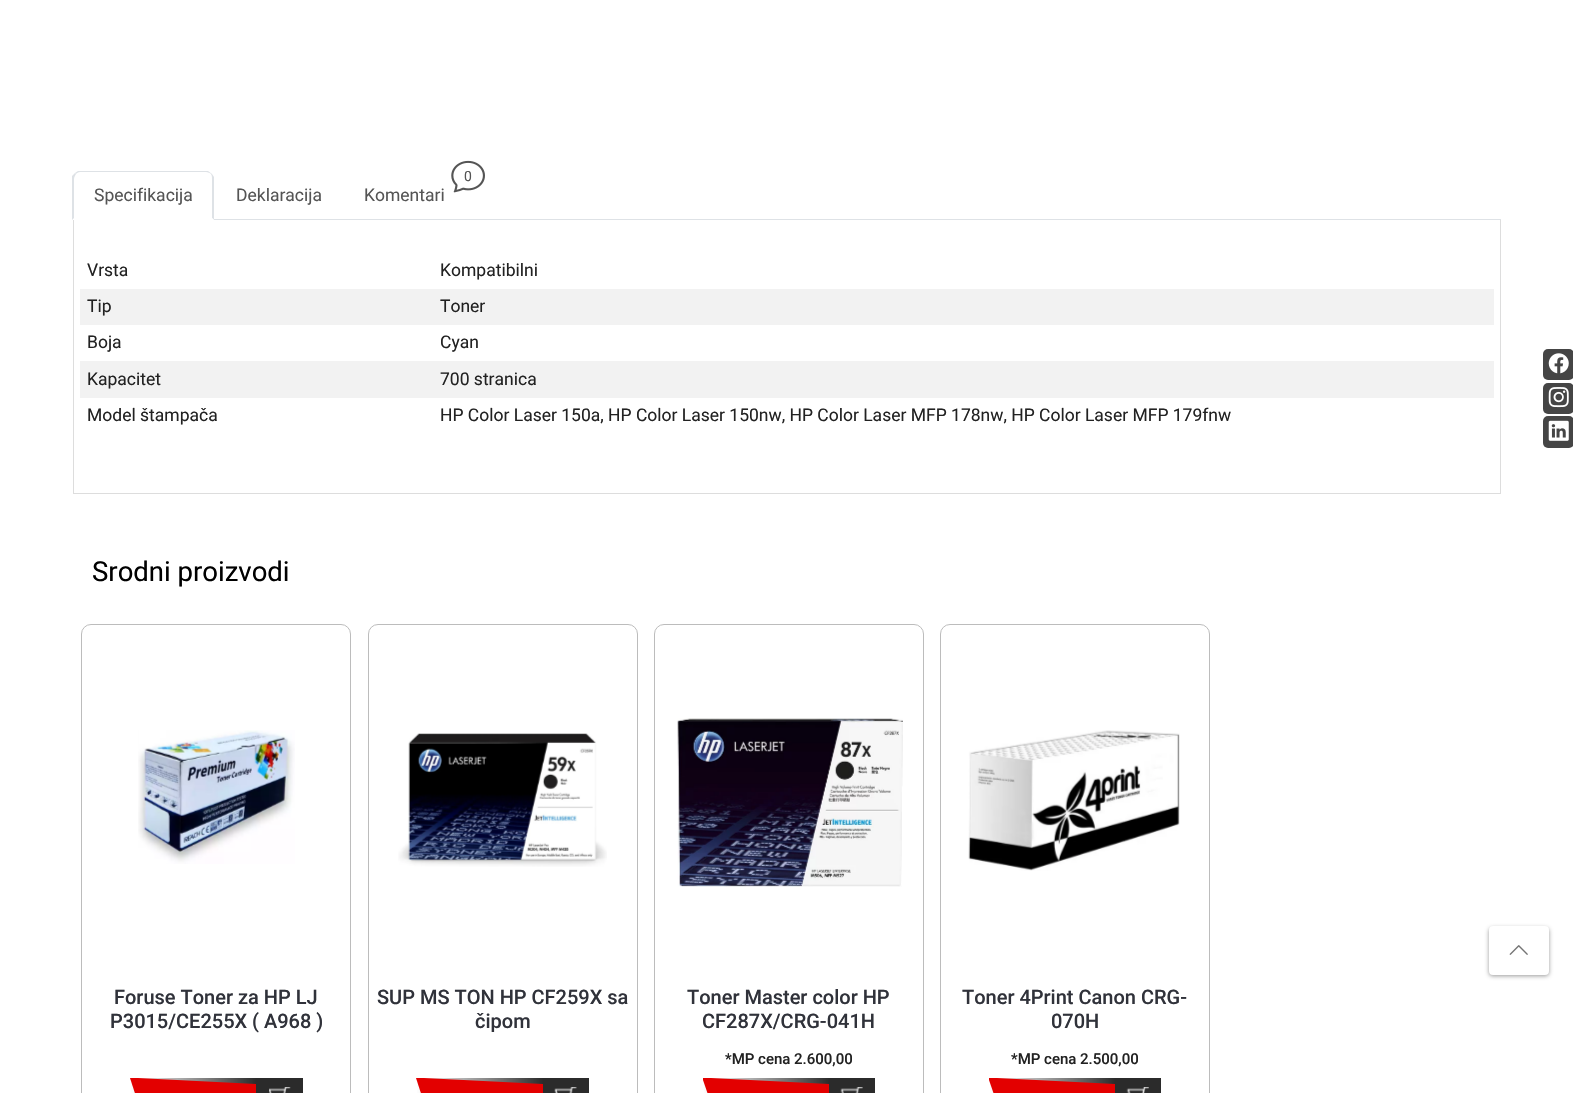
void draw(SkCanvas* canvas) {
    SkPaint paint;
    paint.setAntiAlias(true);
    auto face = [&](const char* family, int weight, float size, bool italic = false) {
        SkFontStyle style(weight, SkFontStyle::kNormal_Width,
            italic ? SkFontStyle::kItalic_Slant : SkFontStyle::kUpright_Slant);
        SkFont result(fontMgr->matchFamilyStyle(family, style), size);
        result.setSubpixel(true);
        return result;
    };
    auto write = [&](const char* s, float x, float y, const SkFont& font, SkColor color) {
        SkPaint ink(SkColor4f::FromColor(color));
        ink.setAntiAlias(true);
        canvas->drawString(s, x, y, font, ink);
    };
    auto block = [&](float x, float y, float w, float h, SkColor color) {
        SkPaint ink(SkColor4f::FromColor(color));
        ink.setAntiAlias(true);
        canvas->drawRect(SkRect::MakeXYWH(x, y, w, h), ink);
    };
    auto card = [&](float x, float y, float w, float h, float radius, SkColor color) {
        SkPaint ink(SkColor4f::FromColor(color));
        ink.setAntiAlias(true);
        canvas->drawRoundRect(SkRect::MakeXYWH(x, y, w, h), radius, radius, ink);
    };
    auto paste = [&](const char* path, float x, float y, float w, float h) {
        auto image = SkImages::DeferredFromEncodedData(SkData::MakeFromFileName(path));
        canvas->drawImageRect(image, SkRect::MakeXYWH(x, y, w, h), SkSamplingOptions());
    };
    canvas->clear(SK_ColorWHITE);
    block(214, 219, 1287, 1, SkColorSetRGB(222, 226, 230));
    paint.setColor(SkColorSetRGB(222, 226, 230));
    canvas->drawPath(SkPathBuilder().moveTo(80, 172).cubicTo(78, 172, 77, 173, 76, 174).lineTo(75, 173).lineTo(78, 171).lineTo(208, 171).lineTo(212, 174).lineTo(211, 174).cubicTo(210, 173, 208, 172, 206, 172).close().detach(), paint);
    canvas->drawPath(SkPathBuilder().moveTo(214, 177).lineTo(214, 220).lineTo(212, 218).lineTo(212, 179).cubicTo(212, 177, 212, 176, 211, 174).lineTo(212, 174).close().detach(), paint);
    paint.setColor(SK_ColorWHITE);
    canvas->drawPath(SkPathBuilder().moveTo(214, 220).lineTo(212, 218).lineTo(212, 219).lineTo(74, 219).lineTo(74, 218).lineTo(72, 220).close().detach(), paint);
    paint.setColor(SkColorSetRGB(222, 226, 230));
    canvas->drawPath(SkPathBuilder().moveTo(72, 220).lineTo(72, 176).lineTo(75, 173).lineTo(76, 174).cubicTo(75, 176, 74, 177, 74, 179).lineTo(74, 218).close().detach(), paint);
    auto kFont1 = face("Roboto", 400, 17.5f);
    write("Specifikacija", 94, 201, kFont1, SkColorSetRGB(85, 85, 85));
    write("Deklaracija", 236, 201, kFont1, SkColorSetRGB(85, 85, 85));
    paste("pic1.png", 451, 160, 34, 33);
    auto kFont2 = face("Roboto", 400, 14);
    write("0", 464, 181, kFont2, SkColorSetRGB(85, 85, 85));
    write("Komentari", 364, 201, kFont1, SkColorSetRGB(85, 85, 85));
    block(1500, 220, 1, 274, SkColorSetRGB(221, 221, 221));
    block(73, 493, 1428, 1, SkColorSetRGB(221, 221, 221));
    block(73, 220, 1, 274, SkColorSetRGB(221, 221, 221));
    write("Vrsta", 87, 276, kFont1, SkColorSetRGB(34, 34, 34));
    write("Kompatibilni", 440, 276, kFont1, SkColorSetRGB(34, 34, 34));
    block(80, 289, 1414, 36, SkColorSetRGB(242, 242, 242));
    write("Tip", 87, 312, kFont1, SkColorSetRGB(34, 34, 34));
    write("Toner", 440, 312, kFont1, SkColorSetRGB(34, 34, 34));
    write("Boja", 87, 348, kFont1, SkColorSetRGB(34, 34, 34));
    write("Cyan", 440, 348, kFont1, SkColorSetRGB(34, 34, 34));
    block(80, 361, 1414, 37, SkColorSetRGB(242, 242, 242));
    write("Kapacitet", 87, 385, kFont1, SkColorSetRGB(34, 34, 34));
    write("700 stranica", 440, 385, kFont1, SkColorSetRGB(34, 34, 34));
    write("Model štampača", 87, 421, kFont1, SkColorSetRGB(34, 34, 34));
    write("HP Color Laser 150a, HP Color Laser 150nw, HP Color Laser MFP 178nw, HP Color Laser MFP 179fnw", 440, 421, kFont1, SkColorSetRGB(34, 34, 34));
    auto kFont3 = face("Roboto", 400, 27.5f);
    write("Srodni proizvodi", 92, 581, kFont3, SK_ColorBLACK);
    paint.setStyle(SkPaint::kStroke_Style);
    paint.setStrokeWidth(1);
    paint.setColor(SkColorSetRGB(188, 188, 188));
    canvas->drawRoundRect(SkRect::MakeXYWH(81.5f, 624.5f, 269, 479), 9.5f, 9.5f, paint);
    paste("pic2.png", 138, 730, 157, 134);
    auto kFont4 = face("Roboto", 500, 20);
    write("Foruse Toner za HP LJ", 114, 1004, kFont4, SkColorSetRGB(48, 50, 58));
    write("P3015/CE255X ( A968 )", 110, 1028, kFont4, SkColorSetRGB(48, 50, 58));
    paint.setStyle(SkPaint::kFill_Style);
    {
        const SkColor colors[] = {SK_ColorWHITE, SkColorSetRGB(43, 43, 43)};
        const float stops[] = {0, 1};
        const SkPoint ends[] = {{130, 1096}, {256, 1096}};
        paint.setShader(SkGradientShader::MakeLinear(ends, colors, stops, 2, SkTileMode::kClamp));
        paint.setAlpha(255);
    }
    canvas->drawRect(SkRect::MakeXYWH(131, 1078, 125, 15), paint);
    paint.setShader(nullptr);
    paint.setColor(SkColorSetRGB(227, 0, 0));
    canvas->drawPath(SkPathBuilder().moveTo(130, 1078).lineTo(142, 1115).lineTo(256, 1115).lineTo(256, 1084).lineTo(138, 1078).close().detach(), paint);
    block(256, 1078, 47, 15, SkColorSetRGB(43, 43, 43));
    paste("pic3.png", 269, 1087, 22, 6);
    paint.setStyle(SkPaint::kStroke_Style);
    paint.setColor(SkColorSetRGB(188, 188, 188));
    canvas->drawRoundRect(SkRect::MakeXYWH(368.5f, 624.5f, 269, 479), 9.5f, 9.5f, paint);
    paste("pic4.png", 398, 733, 209, 134);
    write("SUP MS TON HP CF259X sa", 377, 1004, kFont4, SkColorSetRGB(48, 50, 58));
    write("čipom", 475, 1028, kFont4, SkColorSetRGB(48, 50, 58));
    paint.setStyle(SkPaint::kFill_Style);
    {
        const SkColor colors[] = {SK_ColorWHITE, SkColorSetRGB(43, 43, 43)};
        const float stops[] = {0, 1};
        const SkPoint ends[] = {{416, 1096}, {543, 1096}};
        paint.setShader(SkGradientShader::MakeLinear(ends, colors, stops, 2, SkTileMode::kClamp));
        paint.setAlpha(255);
    }
    canvas->drawRect(SkRect::MakeXYWH(417, 1078, 126, 15), paint);
    paint.setShader(nullptr);
    paint.setColor(SkColorSetRGB(227, 0, 0));
    canvas->drawPath(SkPathBuilder().moveTo(416, 1078).lineTo(428, 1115).lineTo(543, 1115).lineTo(543, 1084).lineTo(424, 1078).close().detach(), paint);
    block(543, 1078, 46, 15, SkColorSetRGB(43, 43, 43));
    paste("pic5.png", 554, 1087, 23, 6);
    paint.setStyle(SkPaint::kStroke_Style);
    paint.setColor(SkColorSetRGB(188, 188, 188));
    canvas->drawRoundRect(SkRect::MakeXYWH(654.5f, 624.5f, 269, 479), 9.5f, 9.5f, paint);
    paste("pic6.png", 677, 718, 226, 169);
    write("Toner Master color HP", 687, 1004, kFont4, SkColorSetRGB(48, 50, 58));
    write("CF287X/CRG-041H", 702, 1028, kFont4, SkColorSetRGB(48, 50, 58));
    auto kFont5 = face("Roboto", 500, 15);
    write("*MP cena 2.600,00", 725, 1064, kFont5, SkColorSetRGB(34, 34, 34));
    paint.setStyle(SkPaint::kFill_Style);
    {
        const SkColor colors[] = {SK_ColorWHITE, SkColorSetRGB(43, 43, 43)};
        const float stops[] = {0, 1};
        const SkPoint ends[] = {{703, 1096}, {829, 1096}};
        paint.setShader(SkGradientShader::MakeLinear(ends, colors, stops, 2, SkTileMode::kClamp));
        paint.setAlpha(255);
    }
    canvas->drawRect(SkRect::MakeXYWH(704, 1078, 125, 15), paint);
    paint.setShader(nullptr);
    paint.setColor(SkColorSetRGB(227, 0, 0));
    canvas->drawPath(SkPathBuilder().moveTo(703, 1078).lineTo(703, 1080).lineTo(715, 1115).lineTo(829, 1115).lineTo(829, 1084).lineTo(711, 1078).close().detach(), paint);
    block(829, 1078, 46, 15, SkColorSetRGB(43, 43, 43));
    paste("pic7.png", 840, 1087, 23, 6);
    paint.setStyle(SkPaint::kStroke_Style);
    paint.setColor(SkColorSetRGB(188, 188, 188));
    canvas->drawRoundRect(SkRect::MakeXYWH(940.5f, 624.5f, 269, 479), 9.5f, 9.5f, paint);
    paste("pic8.png", 968, 730, 212, 141);
    write("Toner 4Print Canon CRG-", 962, 1004, kFont4, SkColorSetRGB(48, 50, 58));
    write("070H", 1051, 1028, kFont4, SkColorSetRGB(48, 50, 58));
    write("*MP cena 2.500,00", 1011, 1064, kFont5, SkColorSetRGB(34, 34, 34));
    paint.setStyle(SkPaint::kFill_Style);
    {
        const SkColor colors[] = {SK_ColorWHITE, SkColorSetRGB(43, 43, 43)};
        const float stops[] = {0, 1};
        const SkPoint ends[] = {{989, 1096}, {1115, 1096}};
        paint.setShader(SkGradientShader::MakeLinear(ends, colors, stops, 2, SkTileMode::kClamp));
        paint.setAlpha(255);
    }
    canvas->drawRect(SkRect::MakeXYWH(990, 1078, 125, 15), paint);
    paint.setShader(nullptr);
    paint.setColor(SkColorSetRGB(227, 0, 0));
    canvas->drawPath(SkPathBuilder().moveTo(989, 1078).lineTo(989, 1080).lineTo(1001, 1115).lineTo(1115, 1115).lineTo(1115, 1084).lineTo(997, 1078).close().detach(), paint);
    block(1115, 1078, 46, 15, SkColorSetRGB(43, 43, 43));
    paste("pic9.png", 1126, 1087, 23, 6);
    card(1543, 349, 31, 31, 5, SkColorSetRGB(69, 69, 69));
    paste("pic10.png", 1548, 353, 21, 21);
    card(1543, 383, 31, 31, 5, SkColorSetRGB(69, 69, 69));
    paste("pic11.png", 1548, 387, 21, 21);
    card(1543, 416, 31, 32, 5, SkColorSetRGB(69, 69, 69));
    paste("pic12.png", 1548, 420, 21, 21);
    paint.setColor(SkColorSetARGB(102, 0, 0, 0));
    paint.setMaskFilter(SkMaskFilter::MakeBlur(kNormal_SkBlurStyle, 2));
    canvas->drawRoundRect(SkRect::MakeXYWH(1489, 928, 60, 48), 4, 4, paint);
    paint.setMaskFilter(nullptr);
    card(1489, 926, 60, 49, 4, SK_ColorWHITE);
    paste("pic13.png", 1509, 945, 19, 10);
}
